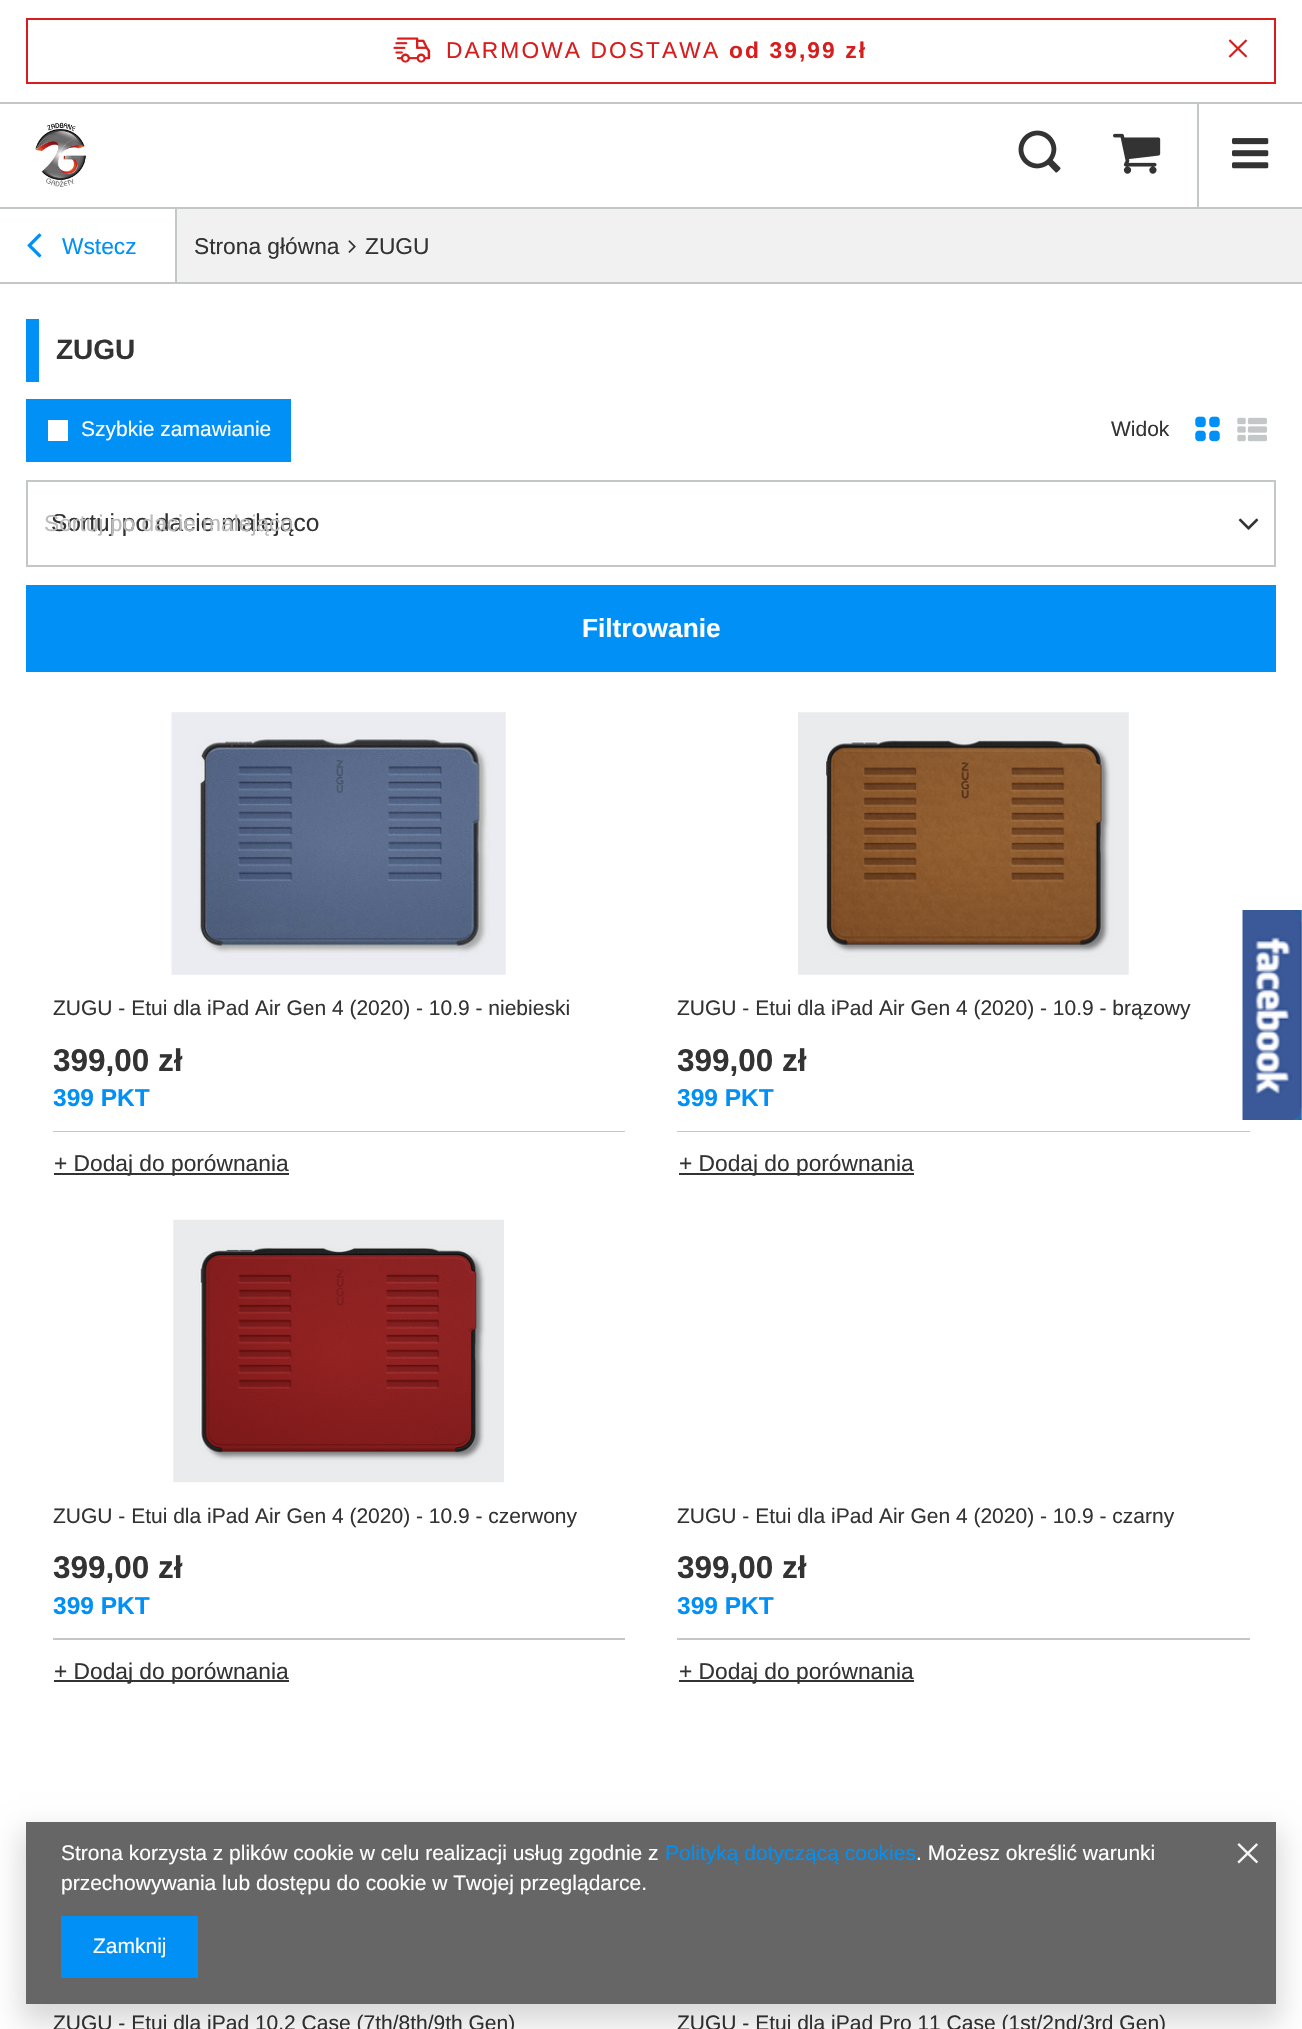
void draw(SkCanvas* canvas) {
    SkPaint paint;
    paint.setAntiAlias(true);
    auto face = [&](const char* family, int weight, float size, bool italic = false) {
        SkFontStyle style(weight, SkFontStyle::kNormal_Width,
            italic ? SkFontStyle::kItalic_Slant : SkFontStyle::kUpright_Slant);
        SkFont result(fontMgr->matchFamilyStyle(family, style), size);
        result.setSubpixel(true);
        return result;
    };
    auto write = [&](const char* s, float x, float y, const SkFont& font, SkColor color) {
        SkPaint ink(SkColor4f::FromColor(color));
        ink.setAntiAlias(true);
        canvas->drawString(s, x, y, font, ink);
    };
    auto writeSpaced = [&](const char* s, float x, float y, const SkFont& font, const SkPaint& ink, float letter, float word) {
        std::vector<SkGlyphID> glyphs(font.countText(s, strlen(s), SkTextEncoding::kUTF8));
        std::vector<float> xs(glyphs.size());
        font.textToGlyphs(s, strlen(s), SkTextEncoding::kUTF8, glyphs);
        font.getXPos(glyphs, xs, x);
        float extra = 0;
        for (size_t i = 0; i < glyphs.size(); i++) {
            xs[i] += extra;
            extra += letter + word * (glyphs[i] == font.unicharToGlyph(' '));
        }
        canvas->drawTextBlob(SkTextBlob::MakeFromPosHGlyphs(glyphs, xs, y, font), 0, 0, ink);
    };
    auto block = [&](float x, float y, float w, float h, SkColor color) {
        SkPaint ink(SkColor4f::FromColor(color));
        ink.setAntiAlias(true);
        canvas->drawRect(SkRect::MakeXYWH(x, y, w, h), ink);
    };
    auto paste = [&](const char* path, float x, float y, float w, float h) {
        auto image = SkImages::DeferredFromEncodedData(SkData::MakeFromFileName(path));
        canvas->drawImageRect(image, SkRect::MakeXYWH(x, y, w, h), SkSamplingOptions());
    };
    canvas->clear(SK_ColorWHITE);
    block(175, 208, 2, 76, SkColorSetRGB(196, 199, 200));
    block(0, 207, 1302, 2, SkColorSetRGB(196, 199, 200));
    paint.setStyle(SkPaint::kStroke_Style);
    paint.setStrokeWidth(2);
    paint.setColor(SkColorSetRGB(216, 29, 29));
    canvas->drawRect(SkRect::MakeXYWH(27, 19, 1248, 64), paint);
    paste("pic1.png", 393, 37, 38, 26);
    auto kFont1 = face("Liberation Sans", 400, 22.75f);
    paint.setStyle(SkPaint::kFill_Style);
    writeSpaced("DARMOWA DOSTAWA", 446, 58, kFont1, paint, 2.1f, 0);
    auto kFont2 = face("Liberation Sans", 700, 22.75f);
    writeSpaced("od 39,99 zł", 729, 58, kFont2, paint, 2.1f, 0);
    paste("pic2.png", 1228, 39, 20, 19);
    block(1197, 102, 2, 105, SkColorSetRGB(196, 199, 200));
    block(0, 102, 1302, 2, SkColorSetRGB(196, 199, 200));
    paste("pic3.png", 35, 122, 51, 65);
    paste("pic4.png", 1018, 130, 43, 43);
    paste("pic5.png", 1113, 133, 48, 41);
    paste("pic6.png", 1232, 138, 37, 31);
    block(177, 209, 1125, 73, SkColorSetRGB(241, 241, 241));
    paste("pic7.png", 27, 233, 15, 25);
    write("Wstecz", 62, 254, kFont1, SkColorSetRGB(0, 144, 246));
    write("Strona główna", 194, 254, kFont1, SkColorSetRGB(51, 51, 51));
    paste("pic8.png", 348, 240, 8, 13);
    write("ZUGU", 365, 254, kFont1, SkColorSetRGB(51, 51, 51));
    block(0, 282, 1302, 2, SkColorSetRGB(196, 199, 200));
    block(26, 319, 13, 63, SkColorSetRGB(0, 144, 246));
    auto kFont3 = face("Liberation Sans", 700, 28);
    write("ZUGU", 56, 359, kFont3, SkColorSetRGB(51, 51, 51));
    block(26, 399, 265, 63, SkColorSetRGB(0, 144, 246));
    block(48, 420, 20, 21, SK_ColorWHITE);
    auto kFont4 = face("Liberation Sans", 400, 21);
    write("Szybkie zamawianie", 81, 436, kFont4, SK_ColorWHITE);
    write("Widok", 1111, 436, kFont4, SkColorSetRGB(51, 51, 51));
    paste("pic9.png", 1195, 416, 25, 26);
    paste("pic10.png", 1237, 417, 30, 25);
    paint.setStyle(SkPaint::kStroke_Style);
    paint.setColor(SkColorSetRGB(196, 199, 200));
    canvas->drawRect(SkRect::MakeXYWH(27, 481, 1248, 85), paint);
    auto kFont5 = face("Liberation Sans", 400, 24.5f);
    write("Sortuj po dacie malejąco", 51, 531, kFont5, SkColorSetRGB(51, 51, 51));
    paste("pic11.png", 1238, 518, 21, 12);
    write("Sortuj po dacie malejąco", 44, 531, kFont1, SkColorSetRGB(187, 187, 187));
    block(26, 585, 1250, 87, SkColorSetRGB(0, 144, 246));
    auto kFont6 = face("Liberation Sans", 700, 26.25f);
    write("Filtrowanie", 582, 637, kFont6, SK_ColorWHITE);
    paste("pic12.png", 171, 712, 335, 263);
    write("ZUGU - Etui dla iPad Air Gen 4 (2020) - 10.9 - niebieski", 53, 1015, kFont4, SkColorSetRGB(51, 51, 51));
    auto kFont7 = face("Liberation Sans", 700, 31.5f);
    write("399,00 zł", 53, 1071, kFont7, SkColorSetRGB(51, 51, 51));
    auto kFont8 = face("Liberation Sans", 700, 24.5f);
    write("399 PKT", 53, 1106, kFont8, SkColorSetRGB(0, 144, 246));
    block(53, 1131, 572, 1, SkColorSetRGB(196, 199, 200));
    block(54, 1173, 235, 2, SkColorSetRGB(51, 51, 51));
    write("+ Dodaj do porównania", 54, 1171, kFont1, SkColorSetRGB(51, 51, 51));
    paste("pic13.png", 798, 712, 331, 263);
    write("ZUGU - Etui dla iPad Air Gen 4 (2020) - 10.9 - brązowy", 677, 1015, kFont4, SkColorSetRGB(51, 51, 51));
    write("399,00 zł", 677, 1071, kFont7, SkColorSetRGB(51, 51, 51));
    write("399 PKT", 677, 1106, kFont8, SkColorSetRGB(0, 144, 246));
    block(677, 1131, 573, 1, SkColorSetRGB(196, 199, 200));
    block(679, 1173, 235, 2, SkColorSetRGB(51, 51, 51));
    write("+ Dodaj do porównania", 679, 1171, kFont1, SkColorSetRGB(51, 51, 51));
    paste("pic14.png", 173, 1219, 331, 264);
    write("ZUGU - Etui dla iPad Air Gen 4 (2020) - 10.9 - czerwony", 53, 1523, kFont4, SkColorSetRGB(51, 51, 51));
    write("399,00 zł", 53, 1578, kFont7, SkColorSetRGB(51, 51, 51));
    write("399 PKT", 53, 1614, kFont8, SkColorSetRGB(0, 144, 246));
    block(53, 1638, 572, 2, SkColorSetRGB(196, 199, 200));
    block(54, 1680, 235, 2, SkColorSetRGB(51, 51, 51));
    write("+ Dodaj do porównania", 54, 1679, kFont1, SkColorSetRGB(51, 51, 51));
    write("ZUGU - Etui dla iPad Air Gen 4 (2020) - 10.9 - czarny", 677, 1523, kFont4, SkColorSetRGB(51, 51, 51));
    write("399,00 zł", 677, 1578, kFont7, SkColorSetRGB(51, 51, 51));
    write("399 PKT", 677, 1614, kFont8, SkColorSetRGB(0, 144, 246));
    block(677, 1638, 573, 2, SkColorSetRGB(196, 199, 200));
    block(679, 1680, 235, 2, SkColorSetRGB(51, 51, 51));
    write("+ Dodaj do porównania", 679, 1679, kFont1, SkColorSetRGB(51, 51, 51));
    write("ZUGU - Etui dla iPad 10.2 Case (7th/8th/9th Gen)", 53, 2030, kFont4, SkColorSetRGB(51, 51, 51));
    write("ZUGU - Etui dla iPad Pro 11 Case (1st/2nd/3rd Gen)", 677, 2030, kFont4, SkColorSetRGB(51, 51, 51));
    paste("pic15.png", 1242, 910, 60, 210);
    canvas->save();
    canvas->clipPath(SkPathBuilder(SkPathFillType::kEvenOdd).moveTo(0, 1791).lineTo(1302, 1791).lineTo(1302, 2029).lineTo(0, 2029).close().moveTo(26, 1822).lineTo(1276, 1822).lineTo(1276, 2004).lineTo(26, 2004).close().detach(), true);
    paint.setStyle(SkPaint::kFill_Style);
    paint.setColor(SkColorSetARGB(38, 0, 0, 0));
    paint.setMaskFilter(SkMaskFilter::MakeBlur(kNormal_SkBlurStyle, 13));
    canvas->drawRect(SkRect::MakeXYWH(21, 1831, 1260, 192), paint);
    paint.setMaskFilter(nullptr);
    canvas->restore();
    block(26, 1822, 1250, 182, SkColorSetARGB(153, 0, 0, 0));
    write("Strona korzysta z plików cookie w celu realizacji usług zgodnie z", 61, 1860, kFont4, SK_ColorWHITE);
    write("Polityką dotyczącą cookies", 665, 1860, kFont4, SkColorSetRGB(0, 144, 246));
    write(". Możesz określić warunki", 916, 1860, kFont4, SK_ColorWHITE);
    write("przechowywania lub dostępu do cookie w Twojej przeglądarce.", 61, 1890, kFont4, SK_ColorWHITE);
    block(61, 1916, 137, 62, SkColorSetRGB(0, 144, 246));
    write("Zamknij", 93, 1953, kFont4, SK_ColorWHITE);
    paste("pic16.png", 1237, 1843, 22, 21);
}
